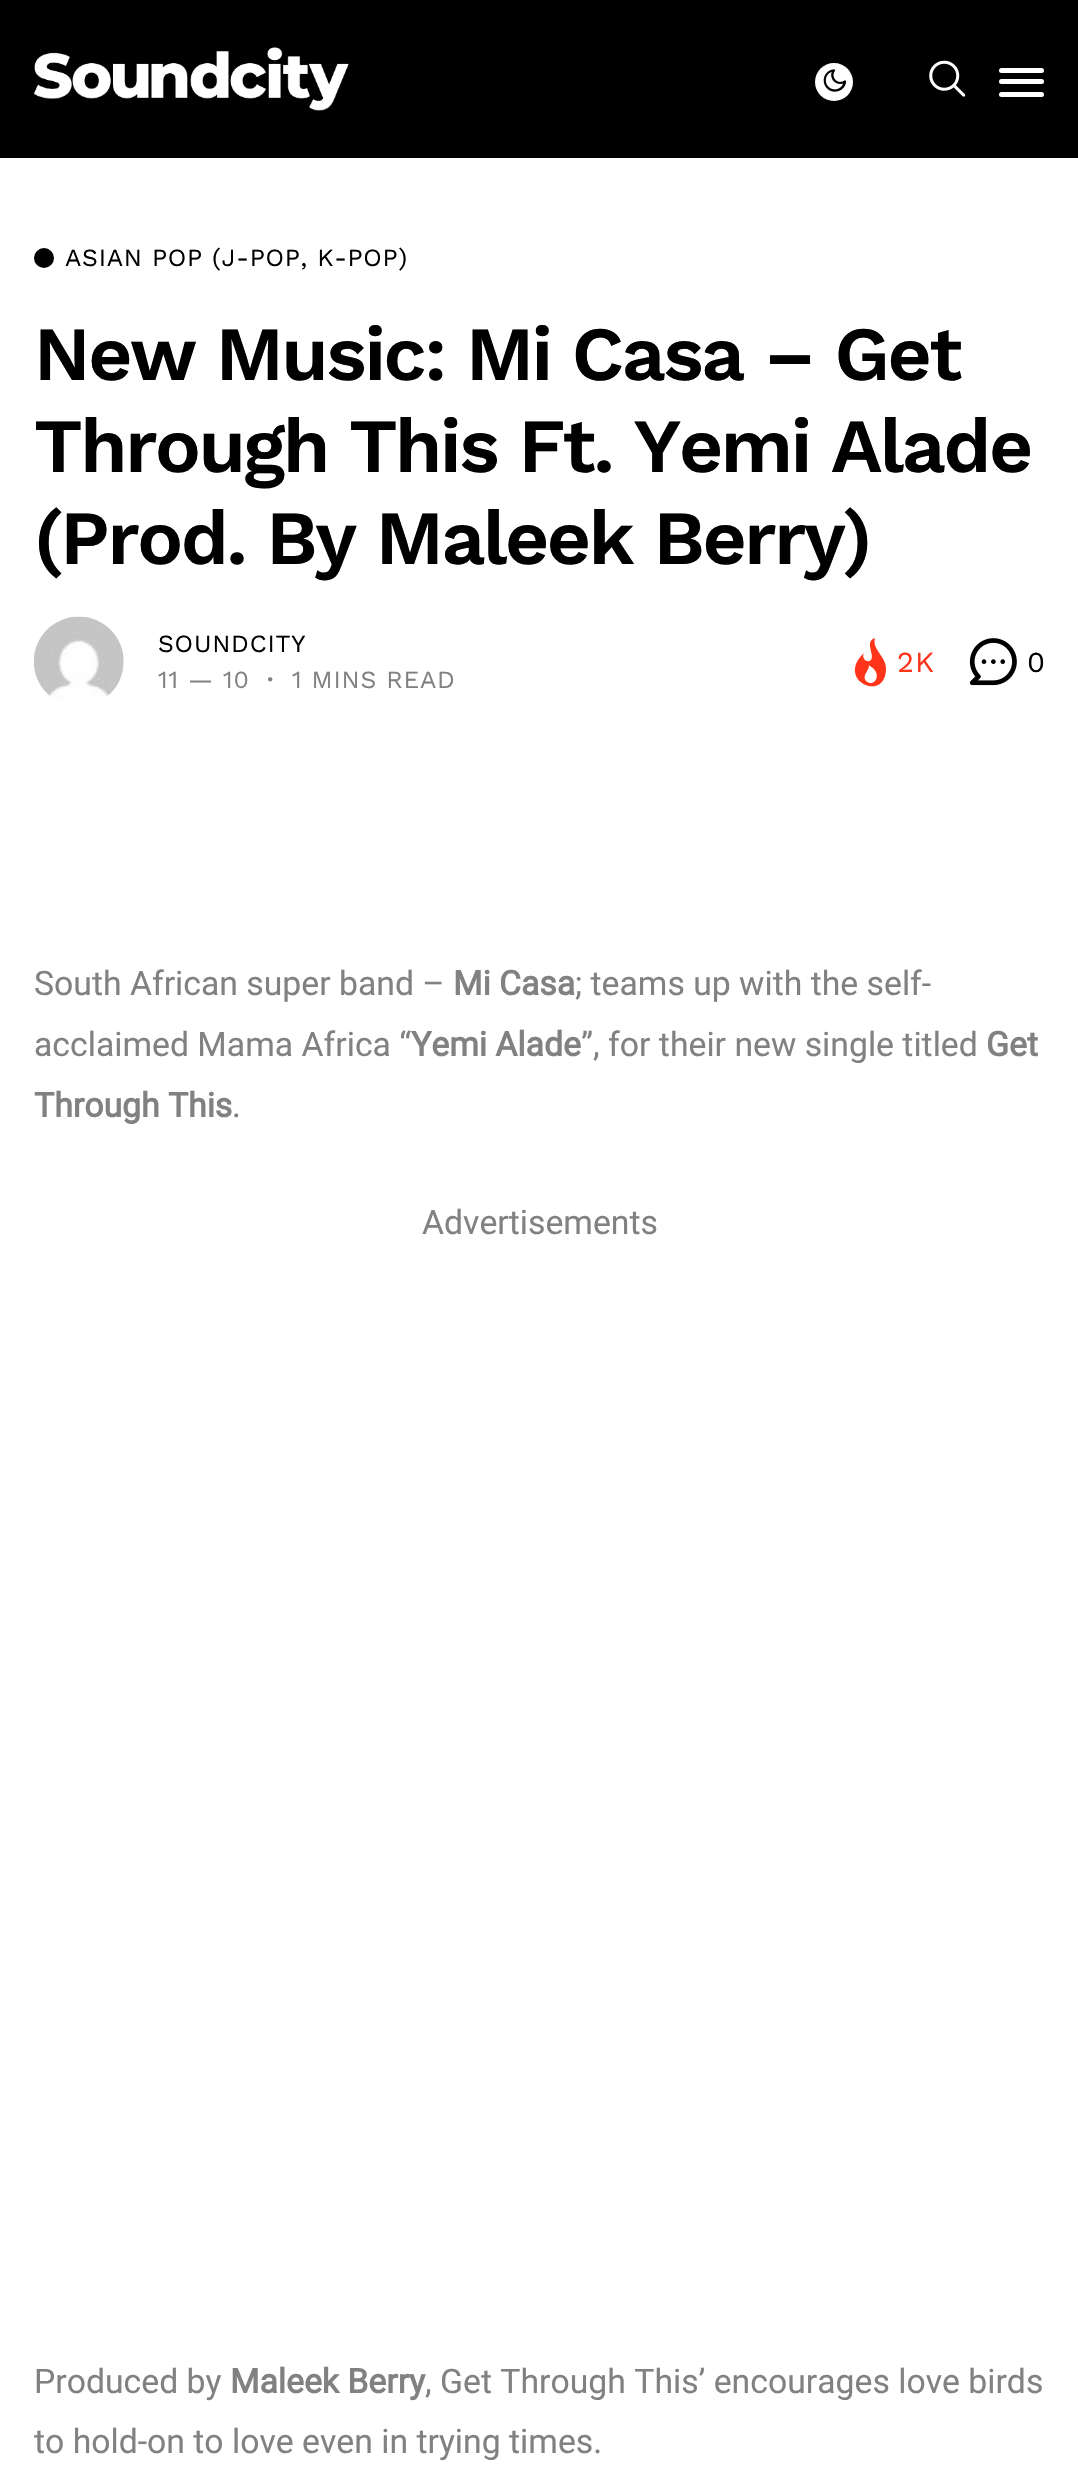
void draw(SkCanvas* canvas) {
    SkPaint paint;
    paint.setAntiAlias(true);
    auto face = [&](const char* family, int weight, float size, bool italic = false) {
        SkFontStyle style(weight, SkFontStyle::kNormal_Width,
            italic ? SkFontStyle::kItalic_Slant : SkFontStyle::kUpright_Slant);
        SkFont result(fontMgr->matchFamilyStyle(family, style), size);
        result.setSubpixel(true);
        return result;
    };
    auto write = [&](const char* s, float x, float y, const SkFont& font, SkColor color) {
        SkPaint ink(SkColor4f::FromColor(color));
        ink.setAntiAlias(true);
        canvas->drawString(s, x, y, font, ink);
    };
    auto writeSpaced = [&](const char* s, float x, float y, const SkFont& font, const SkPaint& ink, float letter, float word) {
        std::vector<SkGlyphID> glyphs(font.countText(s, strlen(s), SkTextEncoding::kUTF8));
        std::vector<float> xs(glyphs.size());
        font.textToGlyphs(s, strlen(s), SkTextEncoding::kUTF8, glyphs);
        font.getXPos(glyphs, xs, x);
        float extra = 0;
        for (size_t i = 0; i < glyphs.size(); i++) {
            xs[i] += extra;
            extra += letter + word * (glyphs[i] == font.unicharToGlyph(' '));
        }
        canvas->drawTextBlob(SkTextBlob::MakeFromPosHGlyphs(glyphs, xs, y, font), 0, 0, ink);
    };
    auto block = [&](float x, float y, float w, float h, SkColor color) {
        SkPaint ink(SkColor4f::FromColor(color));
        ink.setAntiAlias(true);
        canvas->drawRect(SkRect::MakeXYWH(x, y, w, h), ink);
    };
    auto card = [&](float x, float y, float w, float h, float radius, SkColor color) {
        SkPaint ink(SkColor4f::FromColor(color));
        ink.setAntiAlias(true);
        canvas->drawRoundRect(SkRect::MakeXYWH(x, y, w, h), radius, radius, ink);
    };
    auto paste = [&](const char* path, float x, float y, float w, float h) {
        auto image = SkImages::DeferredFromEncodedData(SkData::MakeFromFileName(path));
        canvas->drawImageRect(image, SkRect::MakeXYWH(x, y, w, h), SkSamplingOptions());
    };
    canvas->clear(SK_ColorWHITE);
    block(0, 0, 1078, 158, SK_ColorBLACK);
    paste("pic1.png", 33, 47, 316, 64);
    paint.setColor(SK_ColorWHITE);
    canvas->drawCircle(834, 82, 19, paint);
    paste("pic2.png", 823, 69, 24, 23);
    paste("pic3.png", 929, 60, 37, 37);
    card(999, 68, 45, 5, 2.5f, SK_ColorWHITE);
    card(999, 79, 45, 5, 2.5f, SK_ColorWHITE);
    card(999, 92, 45, 5, 2.5f, SK_ColorWHITE);
    paint.setColor(SK_ColorBLACK);
    canvas->drawCircle(44, 258, 10, paint);
    auto kFont1 = face("Work Sans", 400, 24.75f);
    writeSpaced("ASIAN POP (J-POP, K-POP)", 65, 266, kFont1, paint, 0.75f, 0);
    auto kFont2 = face("Work Sans", 600, 76.5f);
    writeSpaced("New Music: Mi Casa – Get", 34, 380, kFont2, paint, -2.4f, 0);
    writeSpaced("Through This Ft. Yemi Alade", 34, 472, kFont2, paint, -2.4f, 0);
    writeSpaced("(Prod. By Maleek Berry)", 34, 564, kFont2, paint, -2.4f, 0);
    paste("pic4.png", 34, 616, 90, 85);
    writeSpaced("SOUNDCITY", 158, 652, kFont1, paint, 0.75f, 0);
    paint.setColor(SkColorSetRGB(129, 129, 129));
    writeSpaced("11 — 10", 158, 688, kFont1, paint, 0.75f, 0);
    auto kFont3 = face("Work Sans", 600, 24.75f);
    writeSpaced("·", 267, 688, kFont3, paint, 0.75f, 0);
    writeSpaced("1 MINS READ", 292, 688, kFont1, paint, 0.75f, 0);
    paint.setColor(SkColorSetRGB(255, 52, 25));
    canvas->drawPath(SkPathBuilder().moveTo(866, 681).cubicTo(861, 675, 872, 668, 868, 665).cubicTo(884, 672, 875, 689, 866, 681).close().moveTo(864, 653).cubicTo(837, 678, 878, 700, 885, 676).cubicTo(891, 658, 871, 651, 875, 638).cubicTo(864, 642, 875, 654, 871, 660).cubicTo(867, 664, 861, 658, 864, 653).close().detach(), paint);
    auto kFont4 = face("Work Sans", 400, 29);
    writeSpaced("2K", 897, 672, kFont4, paint, 1, 0);
    paste("pic5.png", 969, 638, 48, 48);
    paint.setColor(SK_ColorBLACK);
    writeSpaced("0", 1027, 672, kFont4, paint, 1, 0);
    auto kFont5 = face("Roboto", 400, 33.75f);
    write("South African super band –", 34, 995, kFont5, SkColorSetRGB(129, 129, 129));
    auto kFont6 = face("Roboto", 700, 33.75f);
    write("Mi Casa", 453, 995, kFont6, SkColorSetRGB(129, 129, 129));
    write("; teams up with the self-", 575, 995, kFont5, SkColorSetRGB(129, 129, 129));
    write("acclaimed Mama Africa “", 34, 1056, kFont5, SkColorSetRGB(129, 129, 129));
    write("Yemi Alade", 411, 1056, kFont6, SkColorSetRGB(129, 129, 129));
    write("”, for their new single titled", 581, 1056, kFont5, SkColorSetRGB(129, 129, 129));
    write("Get", 986, 1056, kFont6, SkColorSetRGB(129, 129, 129));
    write("Through This", 34, 1117, kFont6, SkColorSetRGB(129, 129, 129));
    write(".", 232, 1117, kFont5, SkColorSetRGB(129, 129, 129));
    write("Advertisements", 422, 1234, kFont5, SkColorSetRGB(129, 129, 129));
    write("Produced by", 34, 2393, kFont5, SkColorSetRGB(129, 129, 129));
    write("Maleek Berry", 230, 2393, kFont6, SkColorSetRGB(129, 129, 129));
    write(", Get Through This’ encourages love birds", 425, 2393, kFont5, SkColorSetRGB(129, 129, 129));
    write("to hold-on to love even in trying times.", 34, 2453, kFont5, SkColorSetRGB(129, 129, 129));
}
